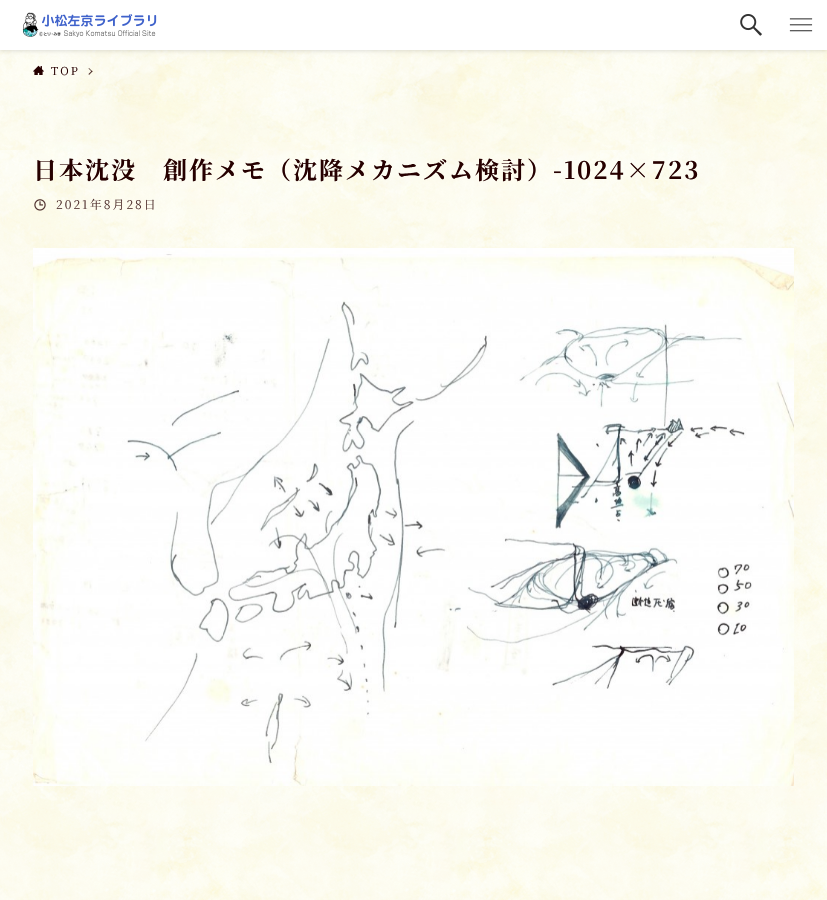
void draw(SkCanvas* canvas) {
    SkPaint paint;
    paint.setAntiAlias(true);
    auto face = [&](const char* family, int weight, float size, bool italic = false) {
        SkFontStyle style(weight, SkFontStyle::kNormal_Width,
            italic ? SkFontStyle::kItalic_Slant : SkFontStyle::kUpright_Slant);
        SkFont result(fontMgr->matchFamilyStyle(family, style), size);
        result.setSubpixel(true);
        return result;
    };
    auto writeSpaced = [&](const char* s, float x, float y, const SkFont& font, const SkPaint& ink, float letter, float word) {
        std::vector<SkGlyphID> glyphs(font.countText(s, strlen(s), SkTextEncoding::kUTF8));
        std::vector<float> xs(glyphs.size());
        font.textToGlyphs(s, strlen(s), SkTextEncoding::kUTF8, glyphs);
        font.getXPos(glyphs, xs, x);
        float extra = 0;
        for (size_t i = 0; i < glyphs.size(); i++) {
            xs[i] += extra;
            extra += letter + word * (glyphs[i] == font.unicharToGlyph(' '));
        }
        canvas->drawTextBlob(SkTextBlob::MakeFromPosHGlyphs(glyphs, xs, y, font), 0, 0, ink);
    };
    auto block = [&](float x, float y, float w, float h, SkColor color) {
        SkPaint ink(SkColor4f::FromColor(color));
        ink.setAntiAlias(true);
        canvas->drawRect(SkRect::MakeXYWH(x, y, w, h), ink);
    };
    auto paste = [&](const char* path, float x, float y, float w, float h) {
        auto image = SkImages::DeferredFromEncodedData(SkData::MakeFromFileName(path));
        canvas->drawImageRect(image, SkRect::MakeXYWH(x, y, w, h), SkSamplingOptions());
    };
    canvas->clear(SK_ColorWHITE);
    paste("pic1.png", 0, 50, 827, 850);
    paint.setColor(SkColorSetARGB(31, 0, 0, 0));
    paint.setMaskFilter(SkMaskFilter::MakeBlur(kNormal_SkBlurStyle, 2));
    canvas->drawRect(SkRect::MakeXYWH(0, 1, 827, 50), paint);
    paint.setMaskFilter(nullptr);
    block(0, 0, 827, 50, SK_ColorWHITE);
    paste("pic2.png", 22, 12, 135, 25);
    paste("pic3.png", 740, 14, 22, 22);
    paste("pic4.png", 789, 18, 24, 14);
    paste("pic5.png", 33, 65, 11, 10);
    auto kFont1 = face("Noto Serif JP", 400, 11);
    paint.setColor(SkColorSetRGB(38, 0, 0));
    writeSpaced("TOP", 51, 75, kFont1, paint, 2, 0);
    paint.setColor(SkColorSetARGB(204, 38, 0, 0));
    canvas->drawPath(SkPathBuilder().moveTo(89, 68).lineTo(92.5f, 71.5f).lineTo(92, 72).lineTo(88.5f, 68.5f).close().detach(), paint);
    canvas->drawPath(SkPathBuilder().moveTo(92, 70.5f).lineTo(92.5f, 71.5f).lineTo(89, 75).lineTo(88.5f, 74).close().detach(), paint);
    auto kFont2 = face("Noto Serif JP", 700, 24);
    paint.setColor(SkColorSetRGB(38, 0, 0));
    writeSpaced("日本沈没　創作メモ（沈降メカニズム検討）-1024×723", 33, 179, kFont2, paint, 2, 0);
    paste("pic6.png", 34, 199, 12, 12);
    auto kFont3 = face("Noto Serif JP", 400, 12);
    paint.setColor(SkColorSetRGB(81, 50, 48));
    writeSpaced("2021年8月28日", 56, 209, kFont3, paint, 2, 0);
    paste("pic7.png", 33, 248, 761, 538);
}
